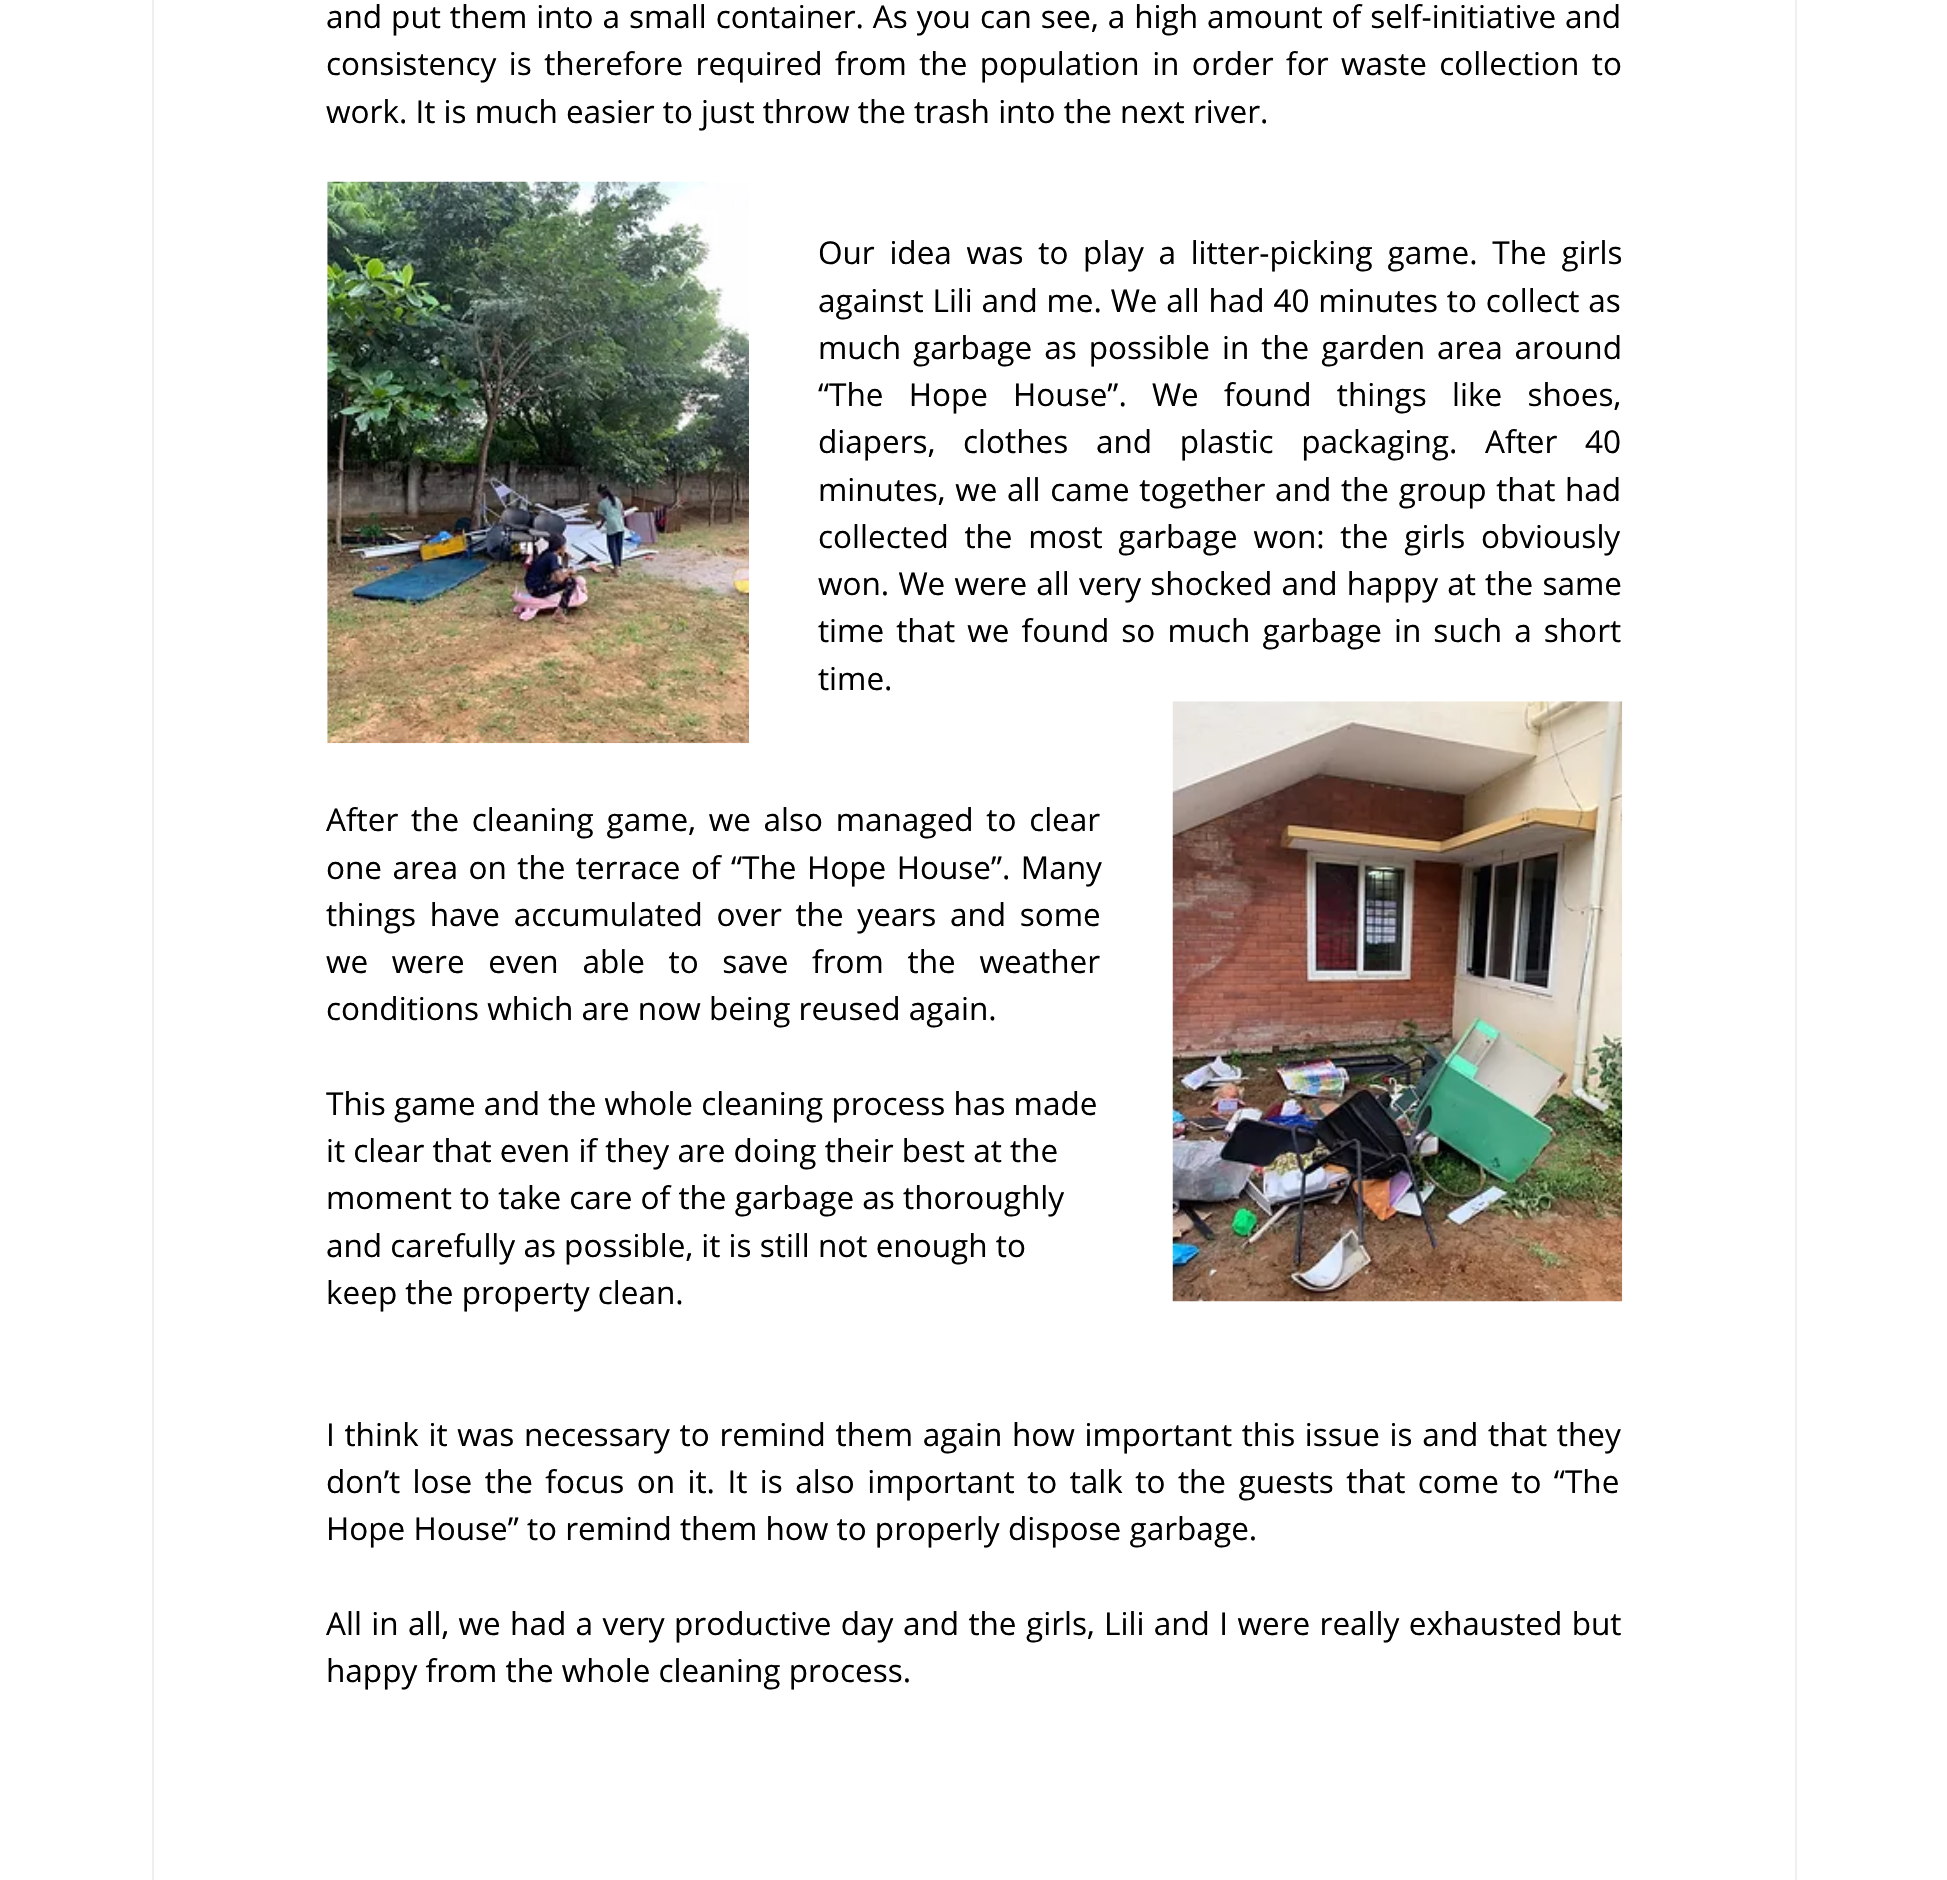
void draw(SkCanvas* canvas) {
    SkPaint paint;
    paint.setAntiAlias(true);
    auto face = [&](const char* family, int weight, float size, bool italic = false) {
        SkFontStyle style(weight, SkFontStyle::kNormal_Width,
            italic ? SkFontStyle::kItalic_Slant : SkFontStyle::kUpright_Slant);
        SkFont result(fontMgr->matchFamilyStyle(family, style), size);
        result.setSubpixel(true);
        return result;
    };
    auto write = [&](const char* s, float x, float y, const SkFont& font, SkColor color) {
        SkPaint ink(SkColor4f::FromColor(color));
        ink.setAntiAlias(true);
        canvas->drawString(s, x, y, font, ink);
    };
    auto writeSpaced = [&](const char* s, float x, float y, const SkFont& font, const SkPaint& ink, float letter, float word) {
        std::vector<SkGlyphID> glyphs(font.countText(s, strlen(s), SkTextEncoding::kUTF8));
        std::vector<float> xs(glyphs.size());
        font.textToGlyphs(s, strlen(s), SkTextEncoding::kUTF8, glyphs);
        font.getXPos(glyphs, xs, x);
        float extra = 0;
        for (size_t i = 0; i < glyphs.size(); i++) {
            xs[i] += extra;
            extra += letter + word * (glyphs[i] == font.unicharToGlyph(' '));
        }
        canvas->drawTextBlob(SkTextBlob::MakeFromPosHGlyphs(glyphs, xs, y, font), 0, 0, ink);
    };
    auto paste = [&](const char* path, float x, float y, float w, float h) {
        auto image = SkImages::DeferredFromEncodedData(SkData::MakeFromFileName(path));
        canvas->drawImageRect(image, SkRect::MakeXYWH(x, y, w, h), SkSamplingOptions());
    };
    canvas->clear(SK_ColorWHITE);
    paint.setStyle(SkPaint::kStroke_Style);
    paint.setStrokeWidth(2);
    paint.setColor(SkColorSetRGB(239, 239, 239));
    canvas->drawRect(SkRect::MakeXYWH(153, -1, 1643, 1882), paint);
    auto kFont1 = face("Open Sans", 400, 31.5f);
    paint.setStyle(SkPaint::kFill_Style);
    paint.setColor(SK_ColorBLACK);
    writeSpaced("and put them into a small container. As you can see, a high amount of self-initiative and", 326, 28, kFont1, paint, 0, 0.75f);
    writeSpaced("consistency is therefore required from the population in order for waste collection to", 326, 75, kFont1, paint, 0, 4.25f);
    write("work. It is much easier to just throw the trash into the next river.", 326, 123, kFont1, SK_ColorBLACK);
    paste("pic1.png", 327, 181, 422, 563);
    writeSpaced("Our idea was to play a litter-picking game. The girls", 818, 264, kFont1, paint, 0, 6.5f);
    writeSpaced("against Lili and me. We all had 40 minutes to collect as", 818, 312, kFont1, paint, 0, 0.6f);
    writeSpaced("much garbage as possible in the garden area around", 818, 359, kFont1, paint, 0, 3.75f);
    writeSpaced("“The Hope House”. We found things like shoes,", 818, 406, kFont1, paint, 0, 17);
    writeSpaced("diapers, clothes and plastic packaging. After 40", 818, 453, kFont1, paint, 0, 19.5f);
    writeSpaced("minutes, we all came together and the group that had", 818, 501, kFont1, paint, 0, 1.5f);
    writeSpaced("collected the most garbage won: the girls obviously", 818, 548, kFont1, paint, 0, 7.5f);
    writeSpaced("won. We were all very shocked and happy at the same", 818, 595, kFont1, paint, 0, 1);
    writeSpaced("time that we found so much garbage in such a short", 818, 642, kFont1, paint, 0, 3.9f);
    write("time.", 818, 690, kFont1, SK_ColorBLACK);
    writeSpaced("After the cleaning game, we also managed to clear", 326, 831, kFont1, paint, 0, 4.5f);
    writeSpaced("one area on the terrace of “The Hope House”. Many", 326, 879, kFont1, paint, 0, 2.25f);
    writeSpaced("things have accumulated over the years and some", 326, 926, kFont1, paint, 0, 5.5f);
    writeSpaced("we were even able to save from the weather", 326, 973, kFont1, paint, 0, 15.5f);
    write("conditions which are now being reused again.", 326, 1020, kFont1, SK_ColorBLACK);
    paste("pic2.png", 1172, 701, 451, 601);
    write("This game and the whole cleaning process has made", 326, 1115, kFont1, SK_ColorBLACK);
    write("it clear that even if they are doing their best at the", 326, 1162, kFont1, SK_ColorBLACK);
    write("moment to take care of the garbage as thoroughly", 326, 1209, kFont1, SK_ColorBLACK);
    write("and carefully as possible, it is still not enough to", 326, 1257, kFont1, SK_ColorBLACK);
    write("keep the property clean.", 326, 1304, kFont1, SK_ColorBLACK);
    writeSpaced("I think it was necessary to remind them again how important this issue is and that they", 326, 1446, kFont1, paint, 0, 1.5f);
    writeSpaced("don’t lose the focus on it. It is also important to talk to the guests that come to “The", 326, 1493, kFont1, paint, 0, 4.25f);
    write("Hope House” to remind them how to properly dispose garbage.", 326, 1540, kFont1, SK_ColorBLACK);
    writeSpaced("All in all, we had a very productive day and the girls, Lili and I were really exhausted but", 326, 1635, kFont1, paint, 0, 1.2f);
    write("happy from the whole cleaning process.", 326, 1682, kFont1, SK_ColorBLACK);
}
